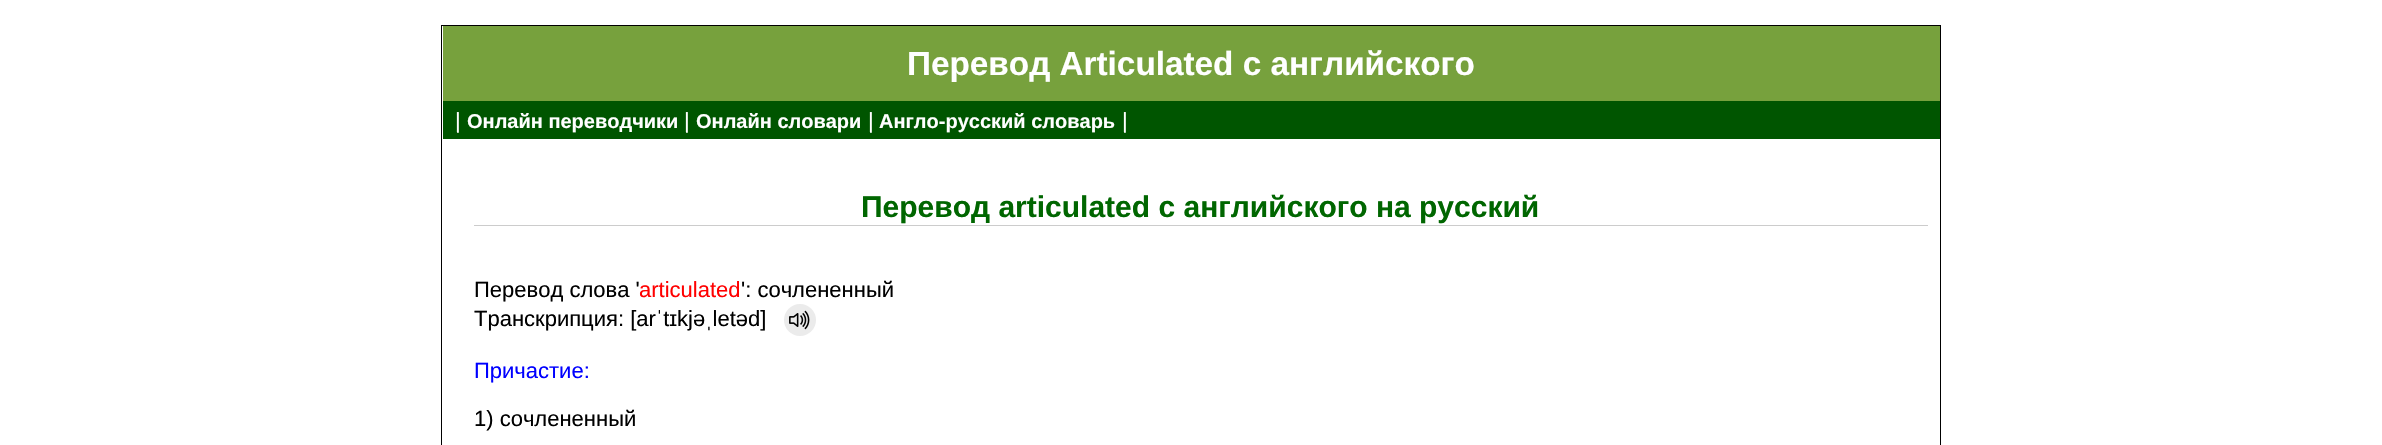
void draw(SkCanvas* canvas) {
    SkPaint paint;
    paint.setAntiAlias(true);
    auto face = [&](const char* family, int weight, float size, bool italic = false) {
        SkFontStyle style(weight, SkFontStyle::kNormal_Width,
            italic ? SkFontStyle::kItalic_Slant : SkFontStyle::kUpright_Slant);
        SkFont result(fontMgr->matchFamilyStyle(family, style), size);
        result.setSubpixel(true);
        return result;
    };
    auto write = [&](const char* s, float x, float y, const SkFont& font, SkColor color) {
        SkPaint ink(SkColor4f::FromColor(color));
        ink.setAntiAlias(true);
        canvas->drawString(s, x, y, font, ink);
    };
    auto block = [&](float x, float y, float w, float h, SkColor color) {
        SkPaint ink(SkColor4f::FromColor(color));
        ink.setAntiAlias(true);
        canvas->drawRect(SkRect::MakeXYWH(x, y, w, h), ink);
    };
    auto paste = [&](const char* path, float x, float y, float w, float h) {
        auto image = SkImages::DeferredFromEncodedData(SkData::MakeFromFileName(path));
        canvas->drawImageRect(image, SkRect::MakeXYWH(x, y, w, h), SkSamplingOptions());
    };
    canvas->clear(SK_ColorWHITE);
    paint.setStyle(SkPaint::kStroke_Style);
    paint.setStrokeWidth(1);
    paint.setColor(SK_ColorBLACK);
    canvas->drawRect(SkRect::MakeXYWH(441.5f, 25.5f, 1499, 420), paint);
    block(443, 26, 1497, 75, SkColorSetRGB(119, 161, 61));
    auto kFont1 = face("Liberation Sans", 700, 33.3f);
    write("Перевод Articulated с английского", 907, 75, kFont1, SK_ColorWHITE);
    block(443, 101, 1497, 38, SkColorSetRGB(0, 85, 0));
    auto kFont2 = face("Liberation Sans", 400, 22);
    write("|", 455, 128, kFont2, SK_ColorWHITE);
    auto kFont3 = face("Liberation Sans", 700, 20);
    write("Онлайн переводчики", 467, 128, kFont3, SK_ColorWHITE);
    write("|", 684, 128, kFont2, SK_ColorWHITE);
    write("Онлайн словари", 696, 128, kFont3, SK_ColorWHITE);
    write("|", 868, 128, kFont2, SK_ColorWHITE);
    write("Англо-русский словарь", 879, 128, kFont3, SK_ColorWHITE);
    write("|", 1122, 128, kFont2, SK_ColorWHITE);
    block(474, 225, 1454, 1, SkColorSetRGB(204, 204, 204));
    auto kFont4 = face("Liberation Sans", 700, 30);
    write("Перевод articulated с английского на русский", 861, 217, kFont4, SkColorSetRGB(0, 102, 0));
    write("Перевод слова '", 474, 297, kFont2, SK_ColorBLACK);
    write("articulated", 639, 297, kFont2, SkColorSetRGB(255, 0, 0));
    write("': сочлененный", 741, 297, kFont2, SK_ColorBLACK);
    write("Транскрипция: [arˈtɪkjəˌletəd]", 474, 326, kFont2, SK_ColorBLACK);
    paint.setStyle(SkPaint::kFill_Style);
    paint.setColor(SkColorSetRGB(235, 235, 235));
    canvas->drawCircle(800, 320, 16, paint);
    paste("pic1.png", 789, 310, 21, 20);
    write("Причастие:", 474, 378, kFont2, SkColorSetRGB(0, 0, 255));
    write("1) сочлененный", 474, 426, kFont2, SK_ColorBLACK);
}
